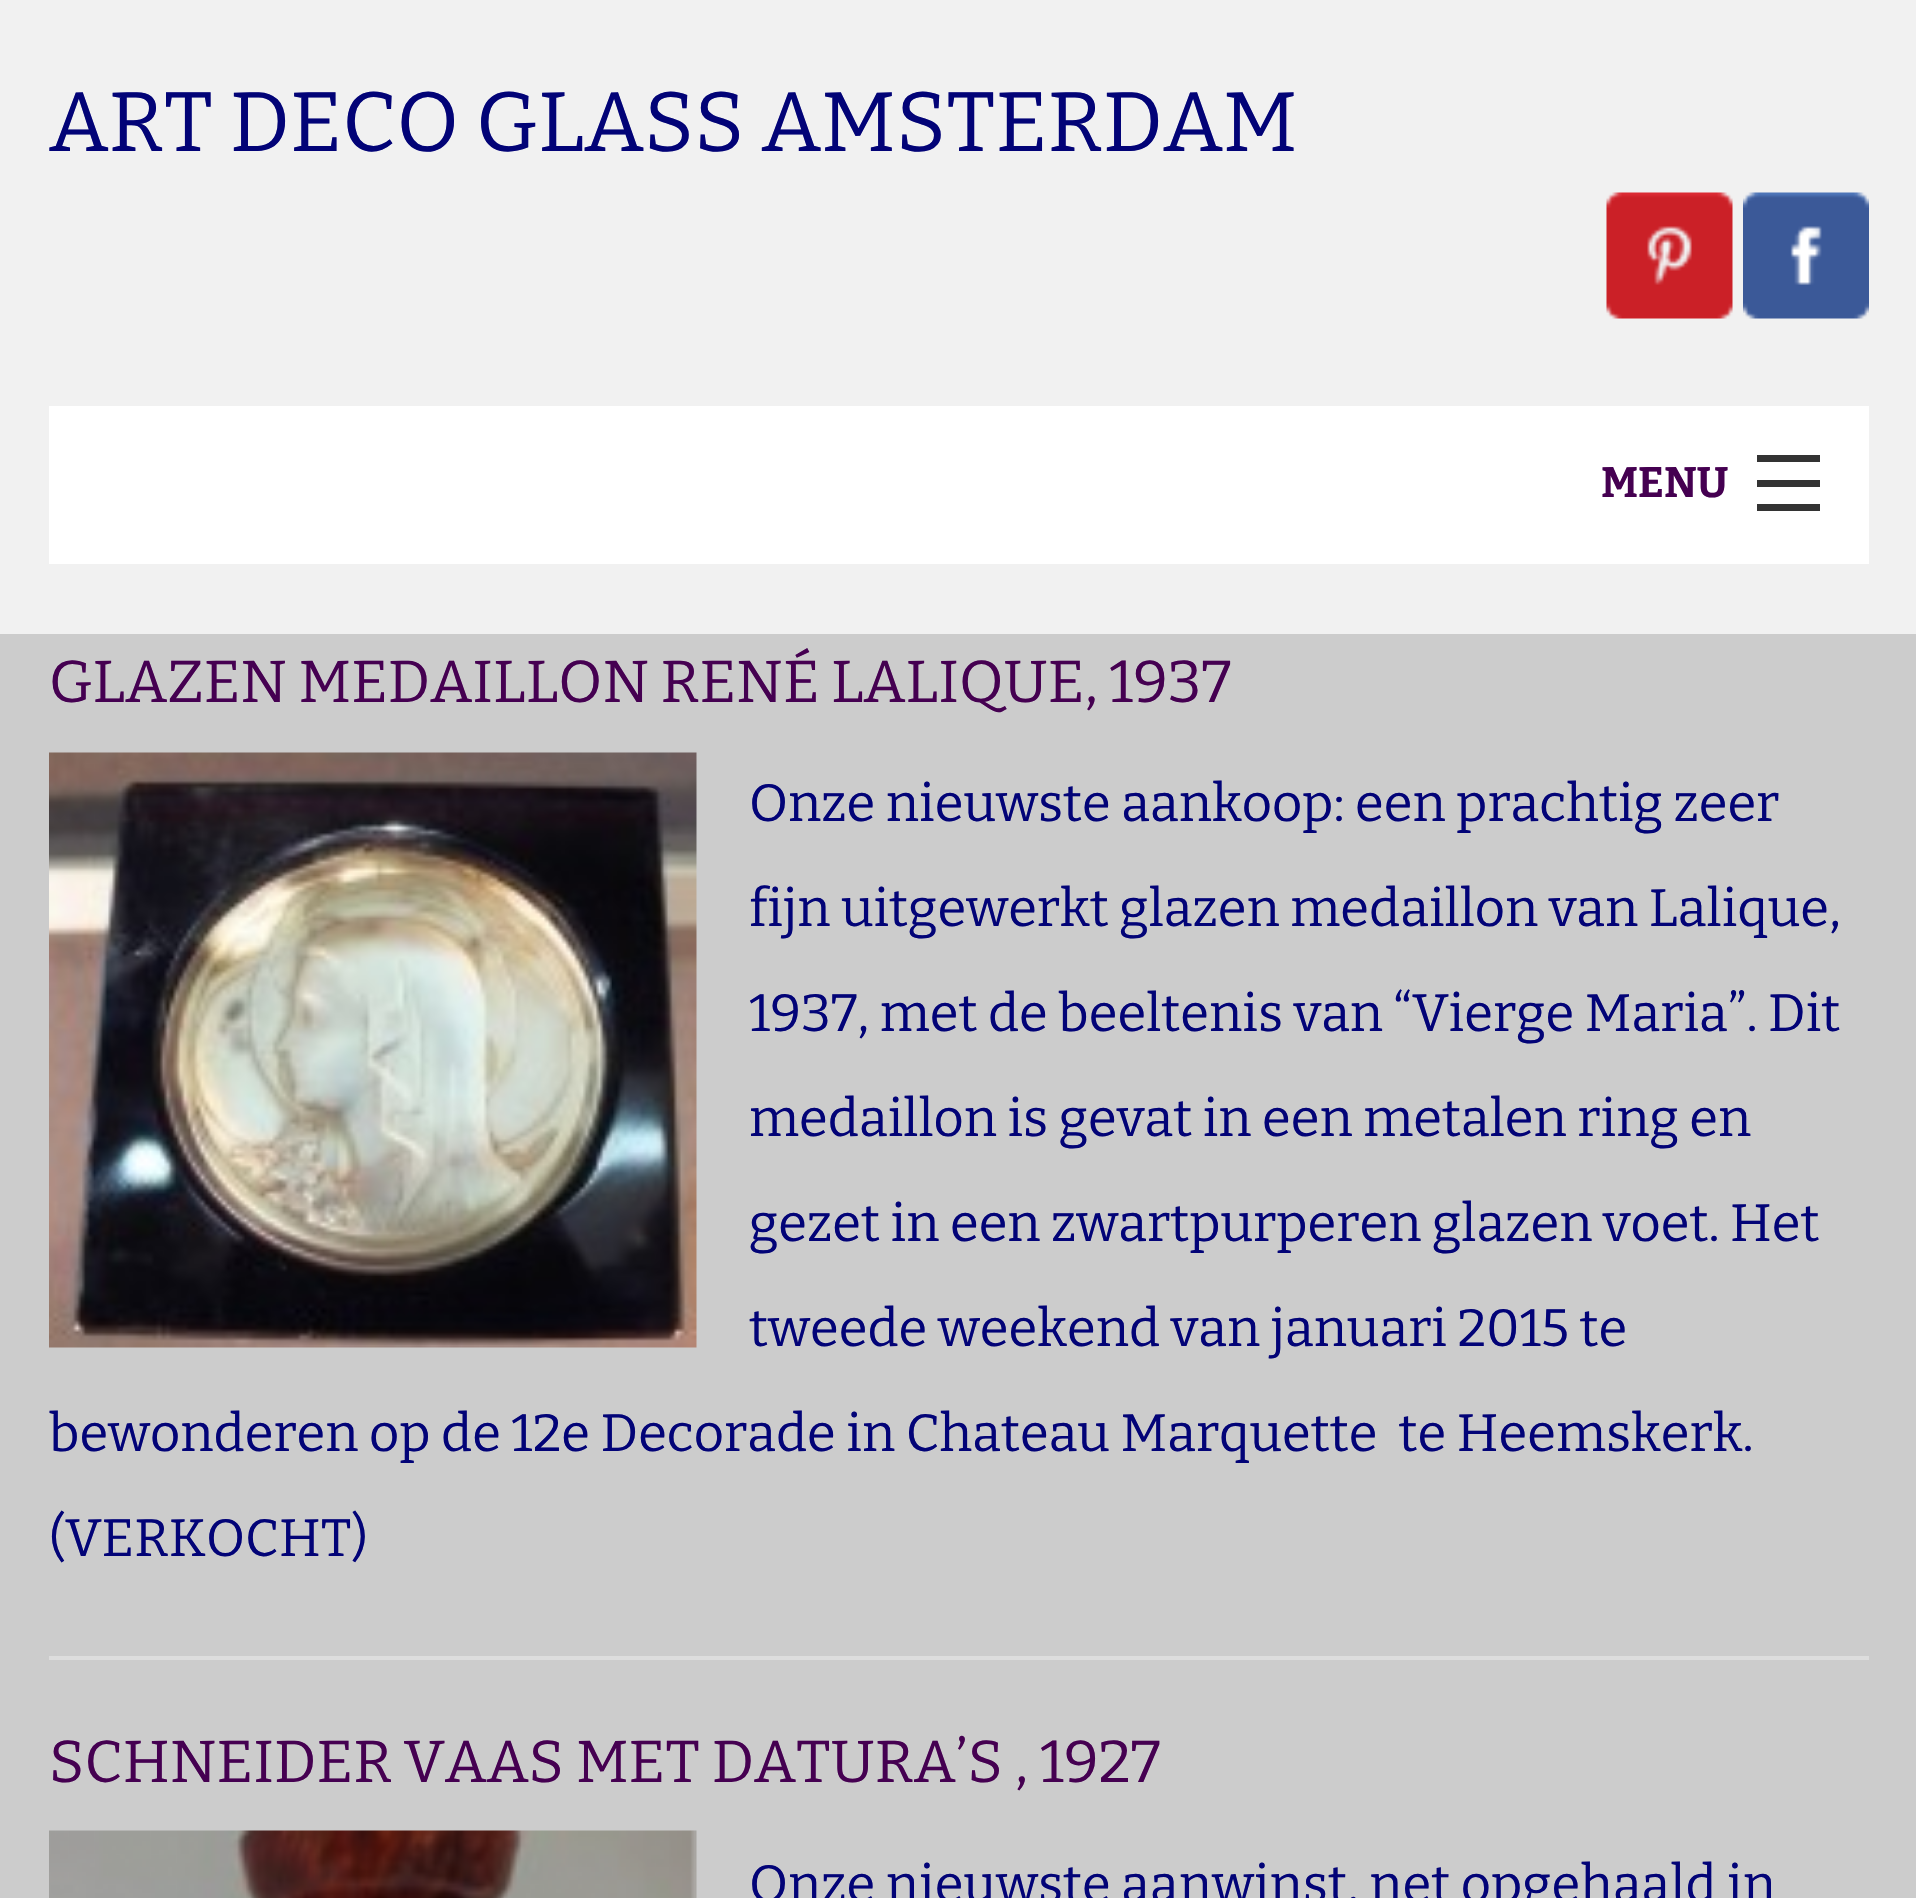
void draw(SkCanvas* canvas) {
    SkPaint paint;
    paint.setAntiAlias(true);
    auto face = [&](const char* family, int weight, float size, bool italic = false) {
        SkFontStyle style(weight, SkFontStyle::kNormal_Width,
            italic ? SkFontStyle::kItalic_Slant : SkFontStyle::kUpright_Slant);
        SkFont result(fontMgr->matchFamilyStyle(family, style), size);
        result.setSubpixel(true);
        return result;
    };
    auto write = [&](const char* s, float x, float y, const SkFont& font, SkColor color) {
        SkPaint ink(SkColor4f::FromColor(color));
        ink.setAntiAlias(true);
        canvas->drawString(s, x, y, font, ink);
    };
    auto writeSpaced = [&](const char* s, float x, float y, const SkFont& font, const SkPaint& ink, float letter, float word) {
        std::vector<SkGlyphID> glyphs(font.countText(s, strlen(s), SkTextEncoding::kUTF8));
        std::vector<float> xs(glyphs.size());
        font.textToGlyphs(s, strlen(s), SkTextEncoding::kUTF8, glyphs);
        font.getXPos(glyphs, xs, x);
        float extra = 0;
        for (size_t i = 0; i < glyphs.size(); i++) {
            xs[i] += extra;
            extra += letter + word * (glyphs[i] == font.unicharToGlyph(' '));
        }
        canvas->drawTextBlob(SkTextBlob::MakeFromPosHGlyphs(glyphs, xs, y, font), 0, 0, ink);
    };
    auto block = [&](float x, float y, float w, float h, SkColor color) {
        SkPaint ink(SkColor4f::FromColor(color));
        ink.setAntiAlias(true);
        canvas->drawRect(SkRect::MakeXYWH(x, y, w, h), ink);
    };
    auto paste = [&](const char* path, float x, float y, float w, float h) {
        auto image = SkImages::DeferredFromEncodedData(SkData::MakeFromFileName(path));
        canvas->drawImageRect(image, SkRect::MakeXYWH(x, y, w, h), SkSamplingOptions());
    };
    canvas->clear(SkColorSetRGB(204, 204, 204));
    block(0, 0, 1916, 634, SkColorSetRGB(241, 241, 241));
    auto kFont1 = face("Bitter", 400, 84);
    write("ART DECO GLASS AMSTERDAM", 49, 151, kFont1, SkColorSetRGB(2, 3, 119));
    paste("pic1.png", 1606, 192, 127, 127);
    paste("pic2.png", 1743, 192, 126, 127);
    block(49, 406, 1820, 158, SK_ColorWHITE);
    auto kFont2 = face("Bitter", 700, 42.5f);
    write("MENU", 1601, 497, kFont2, SkColorSetRGB(69, 0, 81));
    block(1757, 504, 63, 7, SkColorSetRGB(51, 51, 51));
    block(1757, 480, 63, 7, SkColorSetRGB(51, 51, 51));
    block(1757, 455, 63, 7, SkColorSetRGB(51, 51, 51));
    auto kFont3 = face("Bitter", 400, 59.1f);
    paint.setColor(SkColorSetRGB(69, 0, 81));
    writeSpaced("GLAZEN MEDAILLON RENÉ LALIQUE, 1937", 49, 702, kFont3, paint, 0, -0.5f);
    paste("pic3.png", 49, 752, 648, 596);
    auto kFont4 = face("Bitter", 400, 52.5f);
    write("Onze nieuwste aankoop: een prachtig zeer", 749, 821, kFont4, SkColorSetRGB(2, 3, 119));
    write("fijn uitgewerkt glazen medaillon van Lalique,", 749, 926, kFont4, SkColorSetRGB(2, 3, 119));
    write("1937, met de beeltenis van “Vierge Maria”. Dit", 749, 1031, kFont4, SkColorSetRGB(2, 3, 119));
    write("medaillon is gevat in een metalen ring en", 749, 1136, kFont4, SkColorSetRGB(2, 3, 119));
    write("gezet in een zwartpurperen glazen voet. Het", 749, 1241, kFont4, SkColorSetRGB(2, 3, 119));
    write("tweede weekend van januari 2015 te", 749, 1346, kFont4, SkColorSetRGB(2, 3, 119));
    write("bewonderen op de 12e Decorade in Chateau Marquette  te Heemskerk.", 49, 1451, kFont4, SkColorSetRGB(2, 3, 119));
    write("(VERKOCHT)", 49, 1556, kFont4, SkColorSetRGB(2, 3, 119));
    block(49, 1656, 1820, 4, SkColorSetRGB(221, 221, 221));
    write("SCHNEIDER VAAS MET DATURA’S , 1927", 49, 1782, kFont3, SkColorSetRGB(69, 0, 81));
    paste("pic4.png", 49, 1830, 648, 68);
    write("Onze nieuwste aanwinst, net opgehaald in", 749, 1902, kFont4, SkColorSetRGB(2, 3, 119));
}
